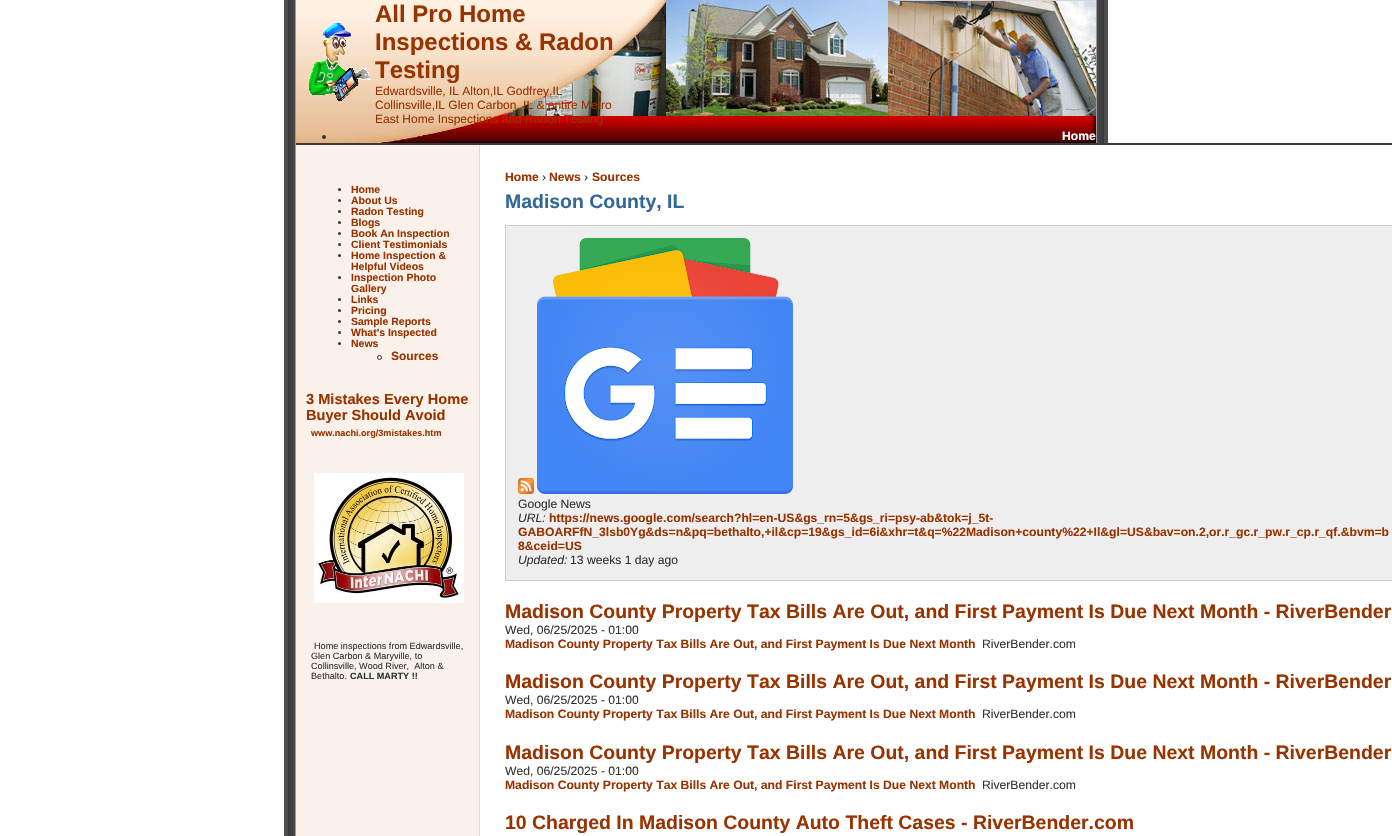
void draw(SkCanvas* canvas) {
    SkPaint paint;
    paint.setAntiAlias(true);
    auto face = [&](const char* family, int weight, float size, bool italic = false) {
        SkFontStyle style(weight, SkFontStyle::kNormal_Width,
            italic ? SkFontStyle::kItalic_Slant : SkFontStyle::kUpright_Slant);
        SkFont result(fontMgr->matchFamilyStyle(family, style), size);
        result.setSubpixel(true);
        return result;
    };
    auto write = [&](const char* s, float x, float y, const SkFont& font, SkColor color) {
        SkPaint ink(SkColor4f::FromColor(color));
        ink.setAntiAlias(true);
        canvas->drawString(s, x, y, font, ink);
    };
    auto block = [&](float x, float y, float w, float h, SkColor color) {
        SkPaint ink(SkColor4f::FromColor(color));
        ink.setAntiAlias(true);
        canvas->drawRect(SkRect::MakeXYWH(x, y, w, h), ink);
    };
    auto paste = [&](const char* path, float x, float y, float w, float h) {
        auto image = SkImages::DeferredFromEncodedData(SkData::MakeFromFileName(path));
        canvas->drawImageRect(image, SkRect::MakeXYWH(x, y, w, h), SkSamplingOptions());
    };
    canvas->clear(SK_ColorWHITE);
    paste("pic1.png", 284, 0, 824, 836);
    paste("pic2.png", 296, 0, 800, 143);
    paste("pic3.png", 309, 22, 62, 79);
    auto kFont1 = face("Liberation Sans", 700, 24);
    write("All Pro Home", 375, 22, kFont1, SkColorSetRGB(153, 51, 0));
    write("Inspections & Radon", 375, 50, kFont1, SkColorSetRGB(153, 51, 0));
    write("Testing", 375, 78, kFont1, SkColorSetRGB(153, 51, 0));
    auto kFont2 = face("Liberation Sans", 400, 12);
    write("Edwardsville, IL Alton,IL Godfrey,IL", 375, 95, kFont2, SkColorSetRGB(153, 51, 0));
    write("Collinsville,IL Glen Carbon, IL & entire Metro", 375, 109, kFont2, SkColorSetRGB(153, 51, 0));
    write("East Home Inspections and Radon Testing", 375, 123, kFont2, SkColorSetRGB(153, 51, 0));
    paint.setColor(SkColorSetRGB(51, 51, 51));
    canvas->drawCircle(324, 137, 2, paint);
    auto kFont3 = face("Liberation Sans", 700, 12.15f);
    write("Home", 1062, 140, kFont3, SkColorSetRGB(254, 254, 254));
    block(1096, 145, 12, 691, SK_ColorWHITE);
    block(296, 143, 1096, 2, SkColorSetRGB(59, 59, 61));
    block(296, 145, 183, 691, SkColorSetRGB(250, 242, 234));
    block(479, 145, 1, 691, SkColorSetRGB(184, 231, 255));
    canvas->drawCircle(339.5f, 189.5f, 1.5f, paint);
    auto kFont4 = face("Liberation Sans", 700, 10.5f);
    write("Home", 351, 193, kFont4, SkColorSetRGB(153, 51, 0));
    canvas->drawCircle(339.5f, 200.5f, 1.5f, paint);
    write("About Us", 351, 204, kFont4, SkColorSetRGB(153, 51, 0));
    canvas->drawCircle(339.5f, 211.5f, 1.5f, paint);
    write("Radon Testing", 351, 215, kFont4, SkColorSetRGB(153, 51, 0));
    canvas->drawCircle(339.5f, 222.5f, 1.5f, paint);
    write("Blogs", 351, 226, kFont4, SkColorSetRGB(153, 51, 0));
    canvas->drawCircle(339.5f, 233.5f, 1.5f, paint);
    write("Book An Inspection", 351, 237, kFont4, SkColorSetRGB(153, 51, 0));
    canvas->drawCircle(339.5f, 244.5f, 1.5f, paint);
    write("Client Testimonials", 351, 248, kFont4, SkColorSetRGB(153, 51, 0));
    canvas->drawCircle(339.5f, 255.5f, 1.5f, paint);
    write("Home Inspection &", 351, 259, kFont4, SkColorSetRGB(153, 51, 0));
    write("Helpful Videos", 351, 270, kFont4, SkColorSetRGB(153, 51, 0));
    canvas->drawCircle(339.5f, 277.5f, 1.5f, paint);
    write("Inspection Photo", 351, 281, kFont4, SkColorSetRGB(153, 51, 0));
    write("Gallery", 351, 292, kFont4, SkColorSetRGB(153, 51, 0));
    canvas->drawCircle(339.5f, 299.5f, 1.5f, paint);
    write("Links", 351, 303, kFont4, SkColorSetRGB(153, 51, 0));
    canvas->drawCircle(339.5f, 310.5f, 1.5f, paint);
    write("Pricing", 351, 314, kFont4, SkColorSetRGB(153, 51, 0));
    canvas->drawCircle(339.5f, 321.5f, 1.5f, paint);
    write("Sample Reports", 351, 325, kFont4, SkColorSetRGB(153, 51, 0));
    canvas->drawCircle(339.5f, 332.5f, 1.5f, paint);
    write("What's Inspected", 351, 336, kFont4, SkColorSetRGB(153, 51, 0));
    canvas->drawCircle(339.5f, 343.5f, 1.5f, paint);
    write("News", 351, 347, kFont4, SkColorSetRGB(153, 51, 0));
    paint.setStyle(SkPaint::kStroke_Style);
    paint.setStrokeWidth(1);
    canvas->drawCircle(379.5f, 357.5f, 2, paint);
    auto kFont5 = face("Liberation Sans", 700, 12);
    write("Sources", 391, 360, kFont5, SkColorSetRGB(153, 51, 0));
    auto kFont6 = face("Liberation Sans", 700, 14.6f);
    write("3 Mistakes Every Home", 306, 404, kFont6, SkColorSetRGB(153, 51, 0));
    write("Buyer Should Avoid", 306, 420, kFont6, SkColorSetRGB(153, 51, 0));
    auto kFont7 = face("Liberation Sans", 700, 9.1f);
    write("www.nachi.org/3mistakes.htm", 311, 436, kFont7, SkColorSetRGB(153, 51, 0));
    paste("pic4.png", 314, 473, 150, 130);
    auto kFont8 = face("Liberation Sans", 400, 9.1f);
    write("Home inspections from Edwardsville,", 314, 649, kFont8, SkColorSetRGB(51, 51, 51));
    write("Glen Carbon & Maryville, to", 311, 659, kFont8, SkColorSetRGB(51, 51, 51));
    write("Collinsville, Wood River,  Alton &", 311, 669, kFont8, SkColorSetRGB(51, 51, 51));
    write("Bethalto.", 311, 679, kFont8, SkColorSetRGB(51, 51, 51));
    write("CALL MARTY !!", 350, 679, kFont7, SkColorSetRGB(51, 51, 51));
    write("Home", 505, 181, kFont3, SkColorSetRGB(153, 51, 0));
    auto kFont9 = face("Liberation Sans", 400, 12.15f);
    write("›", 542, 181, kFont9, SkColorSetRGB(51, 51, 51));
    write("News", 549, 181, kFont3, SkColorSetRGB(153, 51, 0));
    write("›", 584, 181, kFont9, SkColorSetRGB(51, 51, 51));
    write("Sources", 592, 181, kFont3, SkColorSetRGB(153, 51, 0));
    auto kFont10 = face("Liberation Sans", 700, 19.45f);
    write("Madison County, IL", 505, 208, kFont10, SkColorSetRGB(51, 102, 153));
    paint.setStyle(SkPaint::kFill_Style);
    paint.setColor(SkColorSetRGB(238, 238, 238));
    canvas->drawRect(SkRect::MakeXYWH(505.5f, 225.5f, 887, 355), paint);
    paint.setStyle(SkPaint::kStroke_Style);
    paint.setColor(SkColorSetRGB(204, 204, 204));
    canvas->drawRect(SkRect::MakeXYWH(505.5f, 225.5f, 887, 355), paint);
    paste("pic5.png", 518, 478, 16, 16);
    paste("pic6.png", 537, 238, 256, 256);
    write("Google News", 518, 508, kFont9, SkColorSetRGB(51, 51, 51));
    auto kFont11 = face("Liberation Sans", 400, 12.15f, true);
    write("URL:", 518, 522, kFont11, SkColorSetRGB(51, 51, 51));
    write("https://news.google.com/search?hl=en-US&gs_rn=5&gs_ri=psy-ab&tok=j_5t-", 549, 522, kFont3, SkColorSetRGB(153, 51, 0));
    write("GABOARFfN_3lsb0Yg&ds=n&pq=bethalto,+il&cp=19&gs_id=6i&xhr=t&q=%22Madison+county%22+Il&gl=US&bav=on.2,or.r_gc.r_pw.r_cp.r_qf.&bvm=b", 518, 536, kFont3, SkColorSetRGB(153, 51, 0));
    write("8&ceid=US", 518, 550, kFont3, SkColorSetRGB(153, 51, 0));
    write("Updated:", 518, 564, kFont11, SkColorSetRGB(51, 51, 51));
    write("13 weeks 1 day ago", 570, 564, kFont9, SkColorSetRGB(51, 51, 51));
    write("Madison County Property Tax Bills Are Out, and First Payment Is Due Next Month - RiverBender", 505, 618, kFont10, SkColorSetRGB(153, 51, 0));
    write("Wed, 06/25/2025 - 01:00", 505, 634, kFont9, SkColorSetRGB(51, 51, 51));
    write("Madison County Property Tax Bills Are Out, and First Payment Is Due Next Month", 505, 648, kFont3, SkColorSetRGB(153, 51, 0));
    write("RiverBender.com", 982, 648, kFont9, SkColorSetRGB(51, 51, 51));
    write("Madison County Property Tax Bills Are Out, and First Payment Is Due Next Month - RiverBender", 505, 688, kFont10, SkColorSetRGB(153, 51, 0));
    write("Wed, 06/25/2025 - 01:00", 505, 704, kFont9, SkColorSetRGB(51, 51, 51));
    write("Madison County Property Tax Bills Are Out, and First Payment Is Due Next Month", 505, 718, kFont3, SkColorSetRGB(153, 51, 0));
    write("RiverBender.com", 982, 718, kFont9, SkColorSetRGB(51, 51, 51));
    write("Madison County Property Tax Bills Are Out, and First Payment Is Due Next Month - RiverBender", 505, 759, kFont10, SkColorSetRGB(153, 51, 0));
    write("Wed, 06/25/2025 - 01:00", 505, 775, kFont9, SkColorSetRGB(51, 51, 51));
    write("Madison County Property Tax Bills Are Out, and First Payment Is Due Next Month", 505, 789, kFont3, SkColorSetRGB(153, 51, 0));
    write("RiverBender.com", 982, 789, kFont9, SkColorSetRGB(51, 51, 51));
    write("10 Charged In Madison County Auto Theft Cases - RiverBender.com", 505, 829, kFont10, SkColorSetRGB(153, 51, 0));
}
